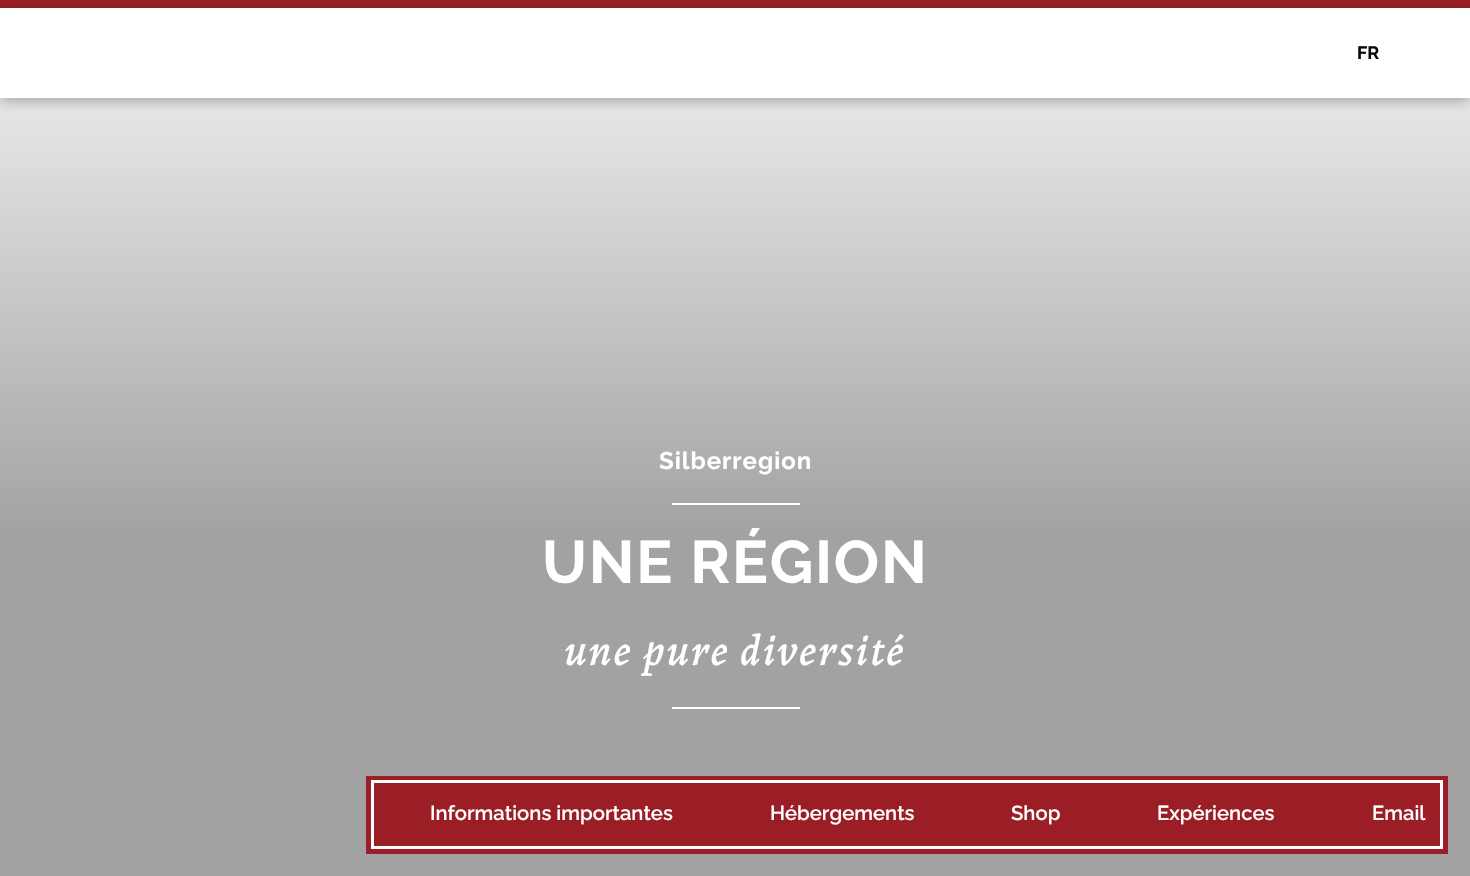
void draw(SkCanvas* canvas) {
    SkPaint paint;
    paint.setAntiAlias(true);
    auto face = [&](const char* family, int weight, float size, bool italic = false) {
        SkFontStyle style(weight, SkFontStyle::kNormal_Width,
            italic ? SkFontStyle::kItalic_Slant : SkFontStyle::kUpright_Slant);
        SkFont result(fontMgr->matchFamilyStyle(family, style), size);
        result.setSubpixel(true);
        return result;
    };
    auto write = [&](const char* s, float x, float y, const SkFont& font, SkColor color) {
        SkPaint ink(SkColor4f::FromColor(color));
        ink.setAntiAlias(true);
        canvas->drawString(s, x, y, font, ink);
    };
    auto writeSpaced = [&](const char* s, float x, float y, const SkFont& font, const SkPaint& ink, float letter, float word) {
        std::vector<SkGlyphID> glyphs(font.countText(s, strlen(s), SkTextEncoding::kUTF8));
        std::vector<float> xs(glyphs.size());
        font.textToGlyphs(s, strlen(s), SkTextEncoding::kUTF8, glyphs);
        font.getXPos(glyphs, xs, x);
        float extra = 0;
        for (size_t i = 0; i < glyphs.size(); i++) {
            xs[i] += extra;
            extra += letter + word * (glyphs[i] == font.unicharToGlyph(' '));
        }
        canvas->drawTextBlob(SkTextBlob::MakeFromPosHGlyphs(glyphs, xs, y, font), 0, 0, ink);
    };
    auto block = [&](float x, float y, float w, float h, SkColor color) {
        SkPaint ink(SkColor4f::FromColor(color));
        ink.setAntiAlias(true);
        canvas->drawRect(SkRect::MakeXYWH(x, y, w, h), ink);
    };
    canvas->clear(SK_ColorWHITE);
    block(0, 0, 1470, 8, SkColorSetRGB(155, 29, 38));
    {
        const SkColor colors[] = {SkColorSetRGB(231, 231, 231), SkColorSetRGB(162, 162, 162)};
        const float stops[] = {0, 0.45f};
        const SkPoint ends[] = {{735, 97}, {735, 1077}};
        paint.setShader(SkGradientShader::MakeLinear(ends, colors, stops, 2, SkTileMode::kClamp));
        paint.setAlpha(255);
    }
    canvas->drawRect(SkRect::MakeXYWH(0, 98, 1470, 778), paint);
    canvas->save();
    canvas->clipPath(SkPathBuilder(SkPathFillType::kEvenOdd).moveTo(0, 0).lineTo(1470, 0).lineTo(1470, 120).lineTo(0, 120).close().moveTo(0, 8).lineTo(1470, 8).lineTo(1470, 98).lineTo(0, 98).close().detach(), true);
    paint.setShader(nullptr);
    paint.setColor(SkColorSetARGB(77, 10, 10, 10));
    paint.setMaskFilter(SkMaskFilter::MakeBlur(kNormal_SkBlurStyle, 6));
    canvas->drawRect(SkRect::MakeXYWH(0, 11, 1470, 90), paint);
    paint.setMaskFilter(nullptr);
    canvas->restore();
    block(1335, 97, 68, 1, SK_ColorWHITE);
    auto kFont1 = face("Raleway", 700, 18);
    write("FR", 1357, 59, kFont1, SkColorSetRGB(10, 10, 10));
    auto kFont2 = face("Raleway", 700, 24);
    paint.setColor(SK_ColorWHITE);
    writeSpaced("Silberregion", 659, 469, kFont2, paint, 1, 0);
    block(672, 503, 128, 2, SK_ColorWHITE);
    auto kFont3 = face("Raleway", 700, 60);
    writeSpaced("UNE RÉGION", 542, 583, kFont3, paint, 1.75f, 0);
    auto kFont4 = face("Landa", 500, 50, true);
    writeSpaced("une pure diversité", 564, 665, kFont4, paint, 2, 0);
    block(672, 707, 128, 2, SK_ColorWHITE);
    block(366, 776, 1082, 78, SkColorSetRGB(155, 29, 38));
    paint.setStyle(SkPaint::kStroke_Style);
    paint.setStrokeWidth(3);
    canvas->drawRect(SkRect::MakeXYWH(372.5f, 781.5f, 1069, 66), paint);
    auto kFont5 = face("Raleway", 600, 20.25f);
    write("Informations importantes", 430, 820, kFont5, SK_ColorWHITE);
    write("Hébergements", 770, 820, kFont5, SK_ColorWHITE);
    write("Shop", 1011, 820, kFont5, SK_ColorWHITE);
    write("Expériences", 1157, 820, kFont5, SK_ColorWHITE);
    write("Email", 1372, 820, kFont5, SK_ColorWHITE);
}
